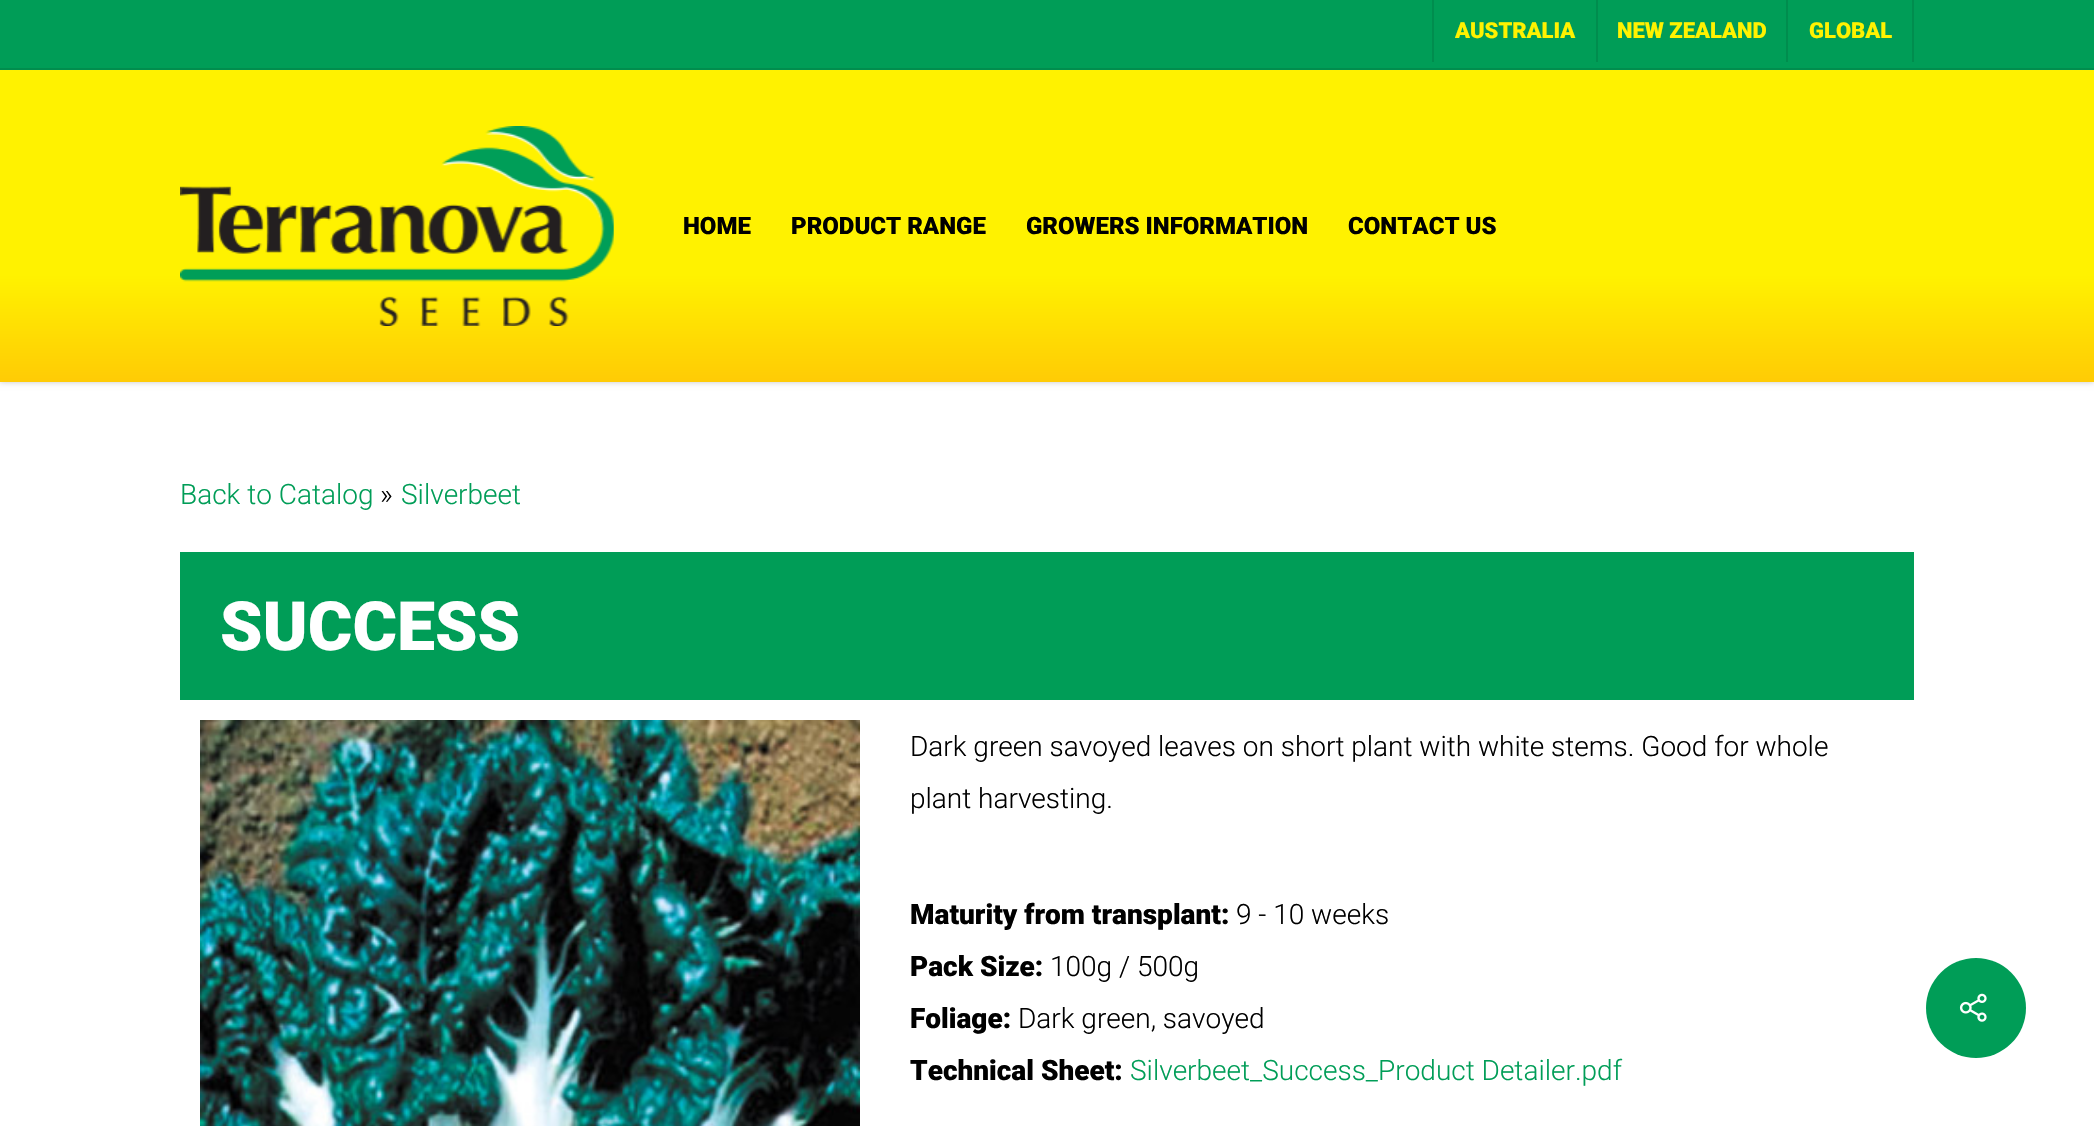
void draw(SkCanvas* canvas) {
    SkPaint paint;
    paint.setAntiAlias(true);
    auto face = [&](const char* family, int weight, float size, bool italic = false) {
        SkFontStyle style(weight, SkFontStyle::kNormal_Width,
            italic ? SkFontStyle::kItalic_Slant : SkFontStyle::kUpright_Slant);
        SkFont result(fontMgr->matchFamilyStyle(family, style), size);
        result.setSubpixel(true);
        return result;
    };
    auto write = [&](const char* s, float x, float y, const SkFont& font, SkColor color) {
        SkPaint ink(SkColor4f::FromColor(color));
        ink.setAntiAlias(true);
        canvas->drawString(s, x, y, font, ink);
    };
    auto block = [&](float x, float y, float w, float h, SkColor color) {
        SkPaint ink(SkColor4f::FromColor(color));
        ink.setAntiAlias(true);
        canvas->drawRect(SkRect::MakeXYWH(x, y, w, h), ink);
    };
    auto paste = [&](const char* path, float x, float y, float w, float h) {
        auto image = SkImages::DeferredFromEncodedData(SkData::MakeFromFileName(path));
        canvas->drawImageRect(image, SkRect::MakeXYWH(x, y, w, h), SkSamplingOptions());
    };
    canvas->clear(SK_ColorWHITE);
    paint.setColor(SkColorSetARGB(56, 0, 0, 0));
    paint.setMaskFilter(SkMaskFilter::MakeBlur(kNormal_SkBlurStyle, 3));
    canvas->drawRect(SkRect::MakeXYWH(0, 0, 2094, 382), paint);
    paint.setMaskFilter(nullptr);
    {
        const SkColor colors[] = {SkColorSetRGB(255, 242, 0), SkColorSetRGB(255, 242, 0), SkColorSetRGB(255, 203, 5)};
        const float stops[] = {0, 0.72f, 1};
        const SkPoint ends[] = {{1047, 0}, {1047, 382}};
        paint.setShader(SkGradientShader::MakeLinear(ends, colors, stops, 3, SkTileMode::kClamp));
        paint.setAlpha(255);
    }
    canvas->drawRect(SkRect::MakeXYWH(0, 70, 2094, 312), paint);
    block(0, 0, 2094, 68, SkColorSetRGB(0, 157, 87));
    block(0, 68, 2094, 2, SkColorSetRGB(0, 141, 78));
    block(1432, 0, 2, 62, SkColorSetRGB(0, 141, 78));
    auto kFont1 = face("Roboto", 900, 22);
    write("AUSTRALIA", 1455, 38, kFont1, SkColorSetRGB(255, 242, 0));
    block(1596, 0, 2, 62, SkColorSetRGB(0, 141, 78));
    write("NEW ZEALAND", 1617, 38, kFont1, SkColorSetRGB(255, 242, 0));
    block(1912, 0, 2, 62, SkColorSetRGB(0, 141, 78));
    block(1786, 0, 2, 62, SkColorSetRGB(0, 141, 78));
    write("GLOBAL", 1809, 38, kFont1, SkColorSetRGB(255, 242, 0));
    paste("pic1.png", 180, 126, 434, 200);
    auto kFont2 = face("Roboto", 900, 24);
    write("HOME", 683, 234, kFont2, SK_ColorBLACK);
    write("PRODUCT RANGE", 791, 234, kFont2, SK_ColorBLACK);
    write("GROWERS INFORMATION", 1026, 234, kFont2, SK_ColorBLACK);
    write("CONTACT US", 1348, 234, kFont2, SK_ColorBLACK);
    auto kFont3 = face("Roboto", 300, 28);
    write("Back to Catalog", 180, 504, kFont3, SkColorSetRGB(0, 157, 87));
    write("»", 380, 504, kFont3, SK_ColorBLACK);
    write("Silverbeet", 401, 504, kFont3, SkColorSetRGB(0, 157, 87));
    block(180, 552, 1734, 148, SkColorSetRGB(0, 157, 87));
    auto kFont4 = face("Roboto", 900, 68);
    write("SUCCESS", 220, 650, kFont4, SK_ColorWHITE);
    paste("pic2.png", 200, 720, 660, 406);
    write("Dark green savoyed leaves on short plant with white stems. Good for whole", 910, 756, kFont3, SK_ColorBLACK);
    write("plant harvesting.", 910, 808, kFont3, SK_ColorBLACK);
    auto kFont5 = face("Roboto", 900, 28);
    write("Maturity from transplant:", 910, 924, kFont5, SK_ColorBLACK);
    write("9 - 10 weeks", 1236, 924, kFont3, SK_ColorBLACK);
    write("Pack Size:", 910, 976, kFont5, SK_ColorBLACK);
    write("100g / 500g", 1050, 976, kFont3, SK_ColorBLACK);
    write("Foliage:", 910, 1028, kFont5, SK_ColorBLACK);
    write("Dark green, savoyed", 1018, 1028, kFont3, SK_ColorBLACK);
    write("Technical Sheet:", 910, 1080, kFont5, SK_ColorBLACK);
    write("Silverbeet_Success_Product Detailer.pdf", 1130, 1080, kFont3, SkColorSetRGB(0, 157, 87));
    paint.setShader(nullptr);
    paint.setColor(SkColorSetRGB(0, 157, 87));
    canvas->drawCircle(1976, 1008, 50, paint);
    paste("pic3.png", 1959, 993, 28, 29);
}
